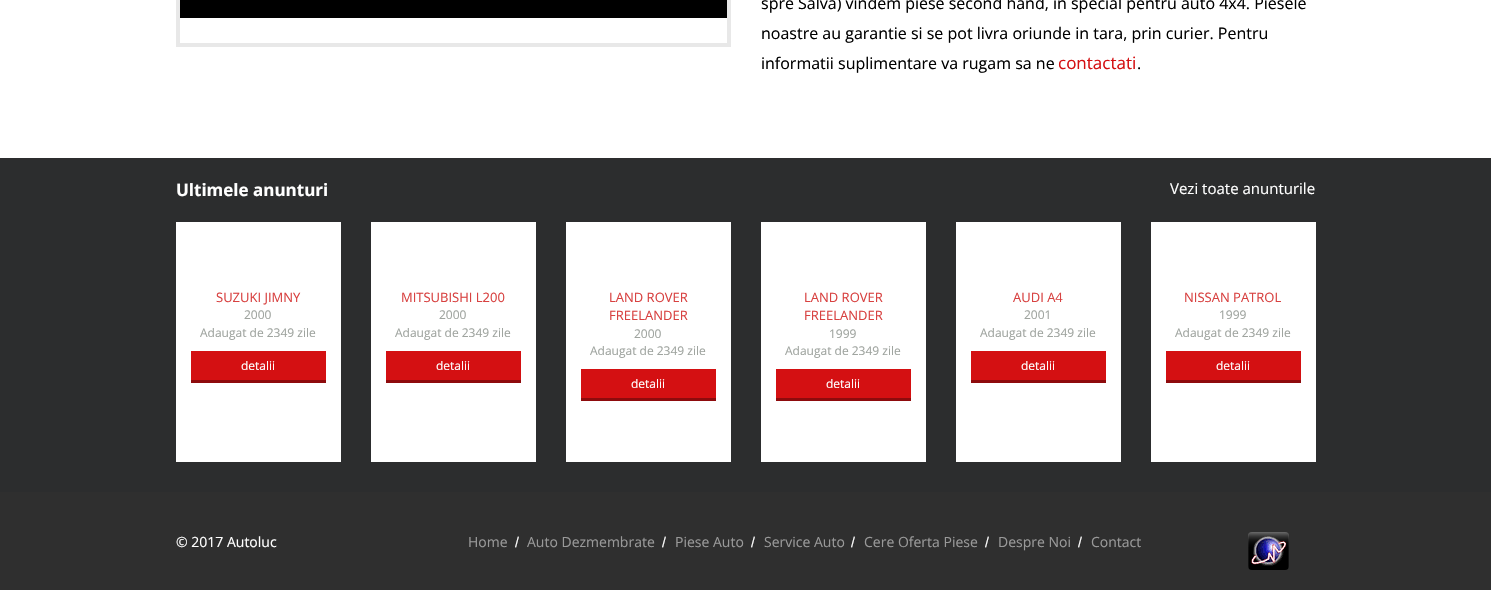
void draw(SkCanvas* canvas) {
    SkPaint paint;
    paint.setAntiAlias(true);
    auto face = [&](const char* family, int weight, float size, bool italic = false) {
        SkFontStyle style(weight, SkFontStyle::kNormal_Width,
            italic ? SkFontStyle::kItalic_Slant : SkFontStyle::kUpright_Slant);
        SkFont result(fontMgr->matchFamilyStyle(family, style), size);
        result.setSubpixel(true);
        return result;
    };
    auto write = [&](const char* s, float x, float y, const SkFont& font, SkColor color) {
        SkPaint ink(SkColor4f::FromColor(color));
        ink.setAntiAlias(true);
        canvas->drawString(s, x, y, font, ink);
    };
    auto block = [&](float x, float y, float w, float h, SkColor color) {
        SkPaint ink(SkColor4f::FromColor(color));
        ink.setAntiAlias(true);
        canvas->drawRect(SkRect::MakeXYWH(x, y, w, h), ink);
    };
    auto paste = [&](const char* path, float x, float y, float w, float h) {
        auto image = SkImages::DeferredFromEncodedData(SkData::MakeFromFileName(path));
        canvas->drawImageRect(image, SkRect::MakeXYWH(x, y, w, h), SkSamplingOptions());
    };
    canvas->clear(SK_ColorWHITE);
    paint.setStyle(SkPaint::kStroke_Style);
    paint.setStrokeWidth(4);
    paint.setColor(SkColorSetRGB(232, 232, 232));
    canvas->drawRect(SkRect::MakeXYWH(178, -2, 551, 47), paint);
    block(180, 0, 547, 18, SK_ColorBLACK);
    auto kFont1 = face("Open Sans", 400, 16);
    write("spre Salva) vindem piese second hand, in special pentru auto 4x4. Piesele", 761, 9, kFont1, SK_ColorBLACK);
    write("noastre au garantie si se pot livra oriunde in tara, prin curier. Pentru", 761, 39, kFont1, SK_ColorBLACK);
    write("informatii suplimentare va rugam sa ne", 761, 69, kFont1, SK_ColorBLACK);
    auto kFont2 = face("Open Sans", 400, 17);
    write("contactati", 1058, 69, kFont2, SkColorSetRGB(212, 16, 18));
    write(".", 1137, 69, kFont1, SK_ColorBLACK);
    block(0, 158, 1491, 334, SkColorSetRGB(44, 45, 46));
    auto kFont3 = face("Open Sans", 700, 17);
    write("Ultimele anunturi", 176, 196, kFont3, SK_ColorWHITE);
    auto kFont4 = face("Open Sans", 400, 15);
    write("Vezi toate anunturile", 1170, 194, kFont4, SK_ColorWHITE);
    block(176, 222, 165, 240, SK_ColorWHITE);
    auto kFont5 = face("Open Sans", 400, 13);
    write("SUZUKI JIMNY", 216, 302, kFont5, SkColorSetRGB(216, 65, 64));
    auto kFont6 = face("Open Sans", 400, 12);
    write("2000", 244, 319, kFont6, SkColorSetRGB(159, 164, 159));
    write("Adaugat de 2349 zile", 200, 337, kFont6, SkColorSetRGB(159, 164, 159));
    block(191, 351, 135, 29, SkColorSetRGB(212, 16, 18));
    block(191, 380, 135, 3, SkColorSetRGB(142, 11, 13));
    write("detalii", 241, 370, kFont6, SK_ColorWHITE);
    block(371, 222, 165, 240, SK_ColorWHITE);
    write("MITSUBISHI L200", 401, 302, kFont5, SkColorSetRGB(216, 65, 64));
    write("2000", 439, 319, kFont6, SkColorSetRGB(159, 164, 159));
    write("Adaugat de 2349 zile", 395, 337, kFont6, SkColorSetRGB(159, 164, 159));
    block(386, 351, 135, 29, SkColorSetRGB(212, 16, 18));
    block(386, 380, 135, 3, SkColorSetRGB(142, 11, 13));
    write("detalii", 436, 370, kFont6, SK_ColorWHITE);
    block(566, 222, 165, 240, SK_ColorWHITE);
    write("LAND ROVER", 609, 302, kFont5, SkColorSetRGB(216, 65, 64));
    write("FREELANDER", 609, 320, kFont5, SkColorSetRGB(216, 65, 64));
    write("2000", 634, 338, kFont6, SkColorSetRGB(159, 164, 159));
    write("Adaugat de 2349 zile", 590, 355, kFont6, SkColorSetRGB(159, 164, 159));
    block(581, 369, 135, 29, SkColorSetRGB(212, 16, 18));
    block(581, 398, 135, 3, SkColorSetRGB(142, 11, 13));
    write("detalii", 631, 388, kFont6, SK_ColorWHITE);
    block(761, 222, 165, 240, SK_ColorWHITE);
    write("LAND ROVER", 804, 302, kFont5, SkColorSetRGB(216, 65, 64));
    write("FREELANDER", 804, 320, kFont5, SkColorSetRGB(216, 65, 64));
    write("1999", 829, 338, kFont6, SkColorSetRGB(159, 164, 159));
    write("Adaugat de 2349 zile", 785, 355, kFont6, SkColorSetRGB(159, 164, 159));
    block(776, 369, 135, 29, SkColorSetRGB(212, 16, 18));
    block(776, 398, 135, 3, SkColorSetRGB(142, 11, 13));
    write("detalii", 826, 388, kFont6, SK_ColorWHITE);
    block(956, 222, 165, 240, SK_ColorWHITE);
    write("AUDI A4", 1013, 302, kFont5, SkColorSetRGB(216, 65, 64));
    write("2001", 1024, 319, kFont6, SkColorSetRGB(159, 164, 159));
    write("Adaugat de 2349 zile", 980, 337, kFont6, SkColorSetRGB(159, 164, 159));
    block(971, 351, 135, 29, SkColorSetRGB(212, 16, 18));
    block(971, 380, 135, 3, SkColorSetRGB(142, 11, 13));
    write("detalii", 1021, 370, kFont6, SK_ColorWHITE);
    block(1151, 222, 165, 240, SK_ColorWHITE);
    write("NISSAN PATROL", 1184, 302, kFont5, SkColorSetRGB(216, 65, 64));
    write("1999", 1219, 319, kFont6, SkColorSetRGB(159, 164, 159));
    write("Adaugat de 2349 zile", 1175, 337, kFont6, SkColorSetRGB(159, 164, 159));
    block(1166, 351, 135, 29, SkColorSetRGB(212, 16, 18));
    block(1166, 380, 135, 3, SkColorSetRGB(142, 11, 13));
    write("detalii", 1216, 370, kFont6, SK_ColorWHITE);
    block(0, 492, 1491, 98, SkColorSetRGB(47, 47, 47));
    auto kFont7 = face("Open Sans", 400, 14);
    write("© 2017 Autoluc", 176, 547, kFont7, SK_ColorWHITE);
    write("Home", 468, 547, kFont7, SkColorSetRGB(153, 153, 153));
    auto kFont8 = face("Liberation Sans", 400, 14);
    write("/", 515, 547, kFont8, SK_ColorWHITE);
    write("Auto Dezmembrate", 527, 547, kFont7, SkColorSetRGB(153, 153, 153));
    write("/", 662, 547, kFont8, SK_ColorWHITE);
    write("Piese Auto", 675, 547, kFont7, SkColorSetRGB(153, 153, 153));
    write("/", 751, 547, kFont8, SK_ColorWHITE);
    write("Service Auto", 764, 547, kFont7, SkColorSetRGB(153, 153, 153));
    write("/", 851, 547, kFont8, SK_ColorWHITE);
    write("Cere Oferta Piese", 864, 547, kFont7, SkColorSetRGB(153, 153, 153));
    write("/", 985, 547, kFont8, SK_ColorWHITE);
    write("Despre Noi", 998, 547, kFont7, SkColorSetRGB(153, 153, 153));
    write("/", 1078, 547, kFont8, SK_ColorWHITE);
    write("Contact", 1091, 547, kFont7, SkColorSetRGB(153, 153, 153));
    paste("pic1.png", 1248, 532, 41, 38);
}
